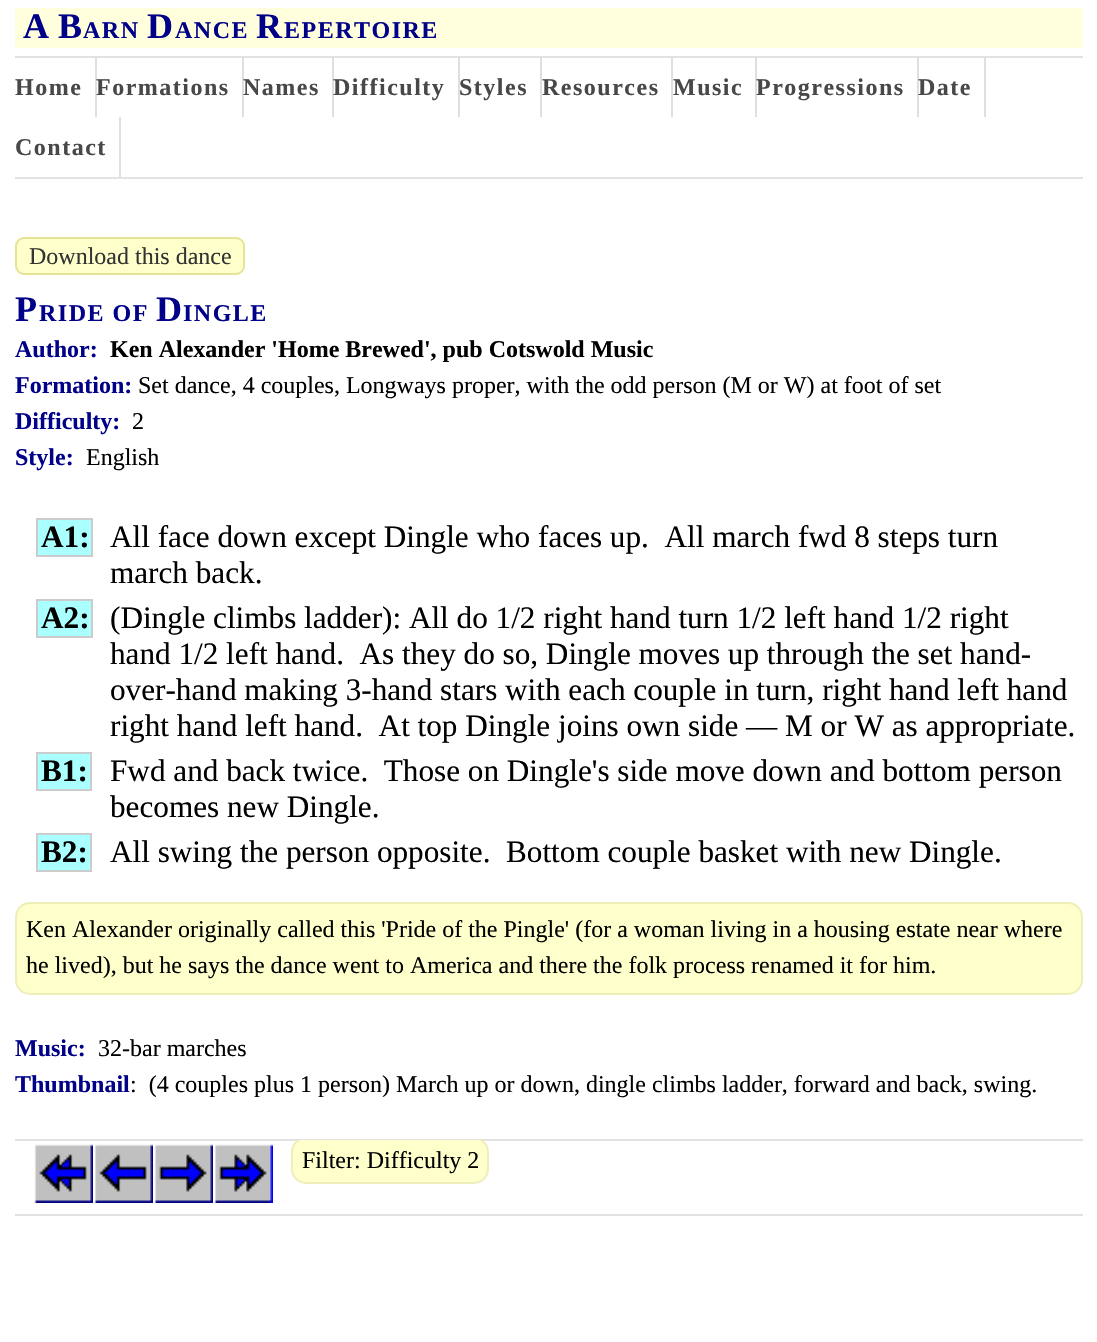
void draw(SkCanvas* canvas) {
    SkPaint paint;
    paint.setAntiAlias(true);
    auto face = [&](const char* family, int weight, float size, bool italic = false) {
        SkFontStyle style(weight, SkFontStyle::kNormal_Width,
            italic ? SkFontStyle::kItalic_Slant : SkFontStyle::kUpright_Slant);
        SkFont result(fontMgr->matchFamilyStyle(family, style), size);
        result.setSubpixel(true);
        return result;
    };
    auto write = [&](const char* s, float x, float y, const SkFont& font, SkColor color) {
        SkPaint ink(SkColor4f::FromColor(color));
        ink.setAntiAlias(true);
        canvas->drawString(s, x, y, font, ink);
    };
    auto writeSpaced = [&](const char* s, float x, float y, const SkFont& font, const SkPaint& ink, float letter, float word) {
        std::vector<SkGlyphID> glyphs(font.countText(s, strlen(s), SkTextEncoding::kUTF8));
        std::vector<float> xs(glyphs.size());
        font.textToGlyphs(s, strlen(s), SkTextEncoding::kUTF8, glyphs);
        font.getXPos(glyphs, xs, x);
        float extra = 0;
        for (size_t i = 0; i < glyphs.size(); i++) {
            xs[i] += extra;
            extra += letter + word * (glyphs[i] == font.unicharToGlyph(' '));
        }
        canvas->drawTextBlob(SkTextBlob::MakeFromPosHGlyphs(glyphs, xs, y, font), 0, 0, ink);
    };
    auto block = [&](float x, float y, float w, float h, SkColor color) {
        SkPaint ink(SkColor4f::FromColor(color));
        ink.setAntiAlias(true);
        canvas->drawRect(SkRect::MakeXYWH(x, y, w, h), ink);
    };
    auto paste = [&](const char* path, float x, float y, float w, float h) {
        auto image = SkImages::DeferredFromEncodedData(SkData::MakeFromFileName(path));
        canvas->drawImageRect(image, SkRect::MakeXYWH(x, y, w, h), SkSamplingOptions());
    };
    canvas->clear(SK_ColorWHITE);
    block(15, 8, 1068, 40, SkColorSetRGB(255, 255, 221));
    auto kFont1 = face("Liberation Serif", 700, 36);
    paint.setColor(SkColorSetRGB(0, 0, 136));
    writeSpaced("A", 23, 38, kFont1, paint, 1.5f, 0);
    writeSpaced("B", 58, 38, kFont1, paint, 1.5f, 0);
    auto kFont2 = face("Liberation Serif", 700, 24);
    writeSpaced("ARN", 83, 38, kFont2, paint, 1.5f, 0);
    writeSpaced("D", 147, 38, kFont1, paint, 1.5f, 0);
    writeSpaced("ANCE", 175, 38, kFont2, paint, 1.5f, 0);
    writeSpaced("R", 256, 38, kFont1, paint, 1.5f, 0);
    writeSpaced("EPERTOIRE", 284, 38, kFont2, paint, 1.5f, 0);
    block(15, 56, 1068, 2, SkColorSetRGB(226, 226, 226));
    block(15, 177, 1068, 2, SkColorSetRGB(226, 226, 226));
    block(95, 57, 2, 60, SkColorSetRGB(223, 223, 223));
    paint.setColor(SkColorSetRGB(72, 72, 72));
    writeSpaced("Home", 15, 95, kFont2, paint, 1.5f, 0);
    block(242, 57, 2, 60, SkColorSetRGB(223, 223, 223));
    writeSpaced("Formations", 96, 95, kFont2, paint, 1.5f, 0);
    block(332, 57, 2, 60, SkColorSetRGB(223, 223, 223));
    writeSpaced("Names", 243, 95, kFont2, paint, 1.5f, 0);
    block(458, 57, 2, 60, SkColorSetRGB(223, 223, 223));
    writeSpaced("Difficulty", 333, 95, kFont2, paint, 1.5f, 0);
    block(540, 57, 2, 60, SkColorSetRGB(223, 223, 223));
    writeSpaced("Styles", 459, 95, kFont2, paint, 1.5f, 0);
    block(671, 57, 2, 60, SkColorSetRGB(223, 223, 223));
    writeSpaced("Resources", 542, 95, kFont2, paint, 1.5f, 0);
    block(755, 57, 2, 60, SkColorSetRGB(223, 223, 223));
    writeSpaced("Music", 673, 95, kFont2, paint, 1.5f, 0);
    block(917, 57, 2, 60, SkColorSetRGB(223, 223, 223));
    writeSpaced("Progressions", 756, 95, kFont2, paint, 1.5f, 0);
    block(984, 57, 2, 60, SkColorSetRGB(223, 223, 223));
    writeSpaced("Date", 918, 95, kFont2, paint, 1.5f, 0);
    block(119, 117, 2, 60, SkColorSetRGB(223, 223, 223));
    writeSpaced("Contact", 15, 155, kFont2, paint, 1.5f, 0);
    paint.setColor(SkColorSetRGB(255, 255, 204));
    canvas->drawRoundRect(SkRect::MakeXYWH(16, 238, 228, 36), 8, 8, paint);
    paint.setStyle(SkPaint::kStroke_Style);
    paint.setStrokeWidth(2);
    paint.setColor(SkColorSetRGB(228, 228, 148));
    canvas->drawRoundRect(SkRect::MakeXYWH(16, 238, 228, 36), 8, 8, paint);
    auto kFont3 = face("Liberation Serif", 400, 24);
    write("Download this dance", 29, 264, kFont3, SkColorSetRGB(51, 51, 51));
    paint.setStyle(SkPaint::kFill_Style);
    paint.setColor(SkColorSetRGB(0, 0, 136));
    writeSpaced("P", 15, 321, kFont1, paint, 1.5f, 0);
    writeSpaced("RIDE OF", 39, 321, kFont2, paint, 1.5f, 0);
    writeSpaced("D", 156, 321, kFont1, paint, 1.5f, 0);
    writeSpaced("INGLE", 183, 321, kFont2, paint, 1.5f, 0);
    write("Author:", 15, 357, kFont2, SkColorSetRGB(0, 0, 136));
    write("Ken Alexander 'Home Brewed', pub Cotswold Music", 110, 357, kFont2, SK_ColorBLACK);
    write("Formation:", 15, 393, kFont2, SkColorSetRGB(0, 0, 136));
    write("Set dance, 4 couples, Longways proper, with the odd person (M or W) at foot of set", 138, 393, kFont3, SK_ColorBLACK);
    write("Difficulty:", 15, 429, kFont2, SkColorSetRGB(0, 0, 136));
    write("2", 132, 429, kFont3, SK_ColorBLACK);
    write("Style:", 15, 465, kFont2, SkColorSetRGB(0, 0, 136));
    write("English", 86, 465, kFont3, SK_ColorBLACK);
    paint.setColor(SkColorSetRGB(170, 255, 255));
    canvas->drawRect(SkRect::MakeXYWH(37, 519, 55, 37), paint);
    paint.setStyle(SkPaint::kStroke_Style);
    paint.setColor(SkColorSetRGB(204, 204, 204));
    canvas->drawRect(SkRect::MakeXYWH(37, 519, 55, 37), paint);
    auto kFont4 = face("Liberation Serif", 700, 31.2f);
    write("A1:", 41, 547, kFont4, SK_ColorBLACK);
    auto kFont5 = face("Liberation Serif", 400, 31.2f);
    write("All face down except Dingle who faces up.  All march fwd 8 steps turn", 110, 547, kFont5, SK_ColorBLACK);
    write("march back.", 110, 583, kFont5, SK_ColorBLACK);
    paint.setStyle(SkPaint::kFill_Style);
    paint.setColor(SkColorSetRGB(170, 255, 255));
    canvas->drawRect(SkRect::MakeXYWH(37, 600, 55, 37), paint);
    paint.setStyle(SkPaint::kStroke_Style);
    paint.setColor(SkColorSetRGB(204, 204, 204));
    canvas->drawRect(SkRect::MakeXYWH(37, 600, 55, 37), paint);
    write("A2:", 41, 628, kFont4, SK_ColorBLACK);
    write("(Dingle climbs ladder): All do 1/2 right hand turn 1/2 left hand 1/2 right", 110, 628, kFont5, SK_ColorBLACK);
    write("hand 1/2 left hand.  As they do so, Dingle moves up through the set hand-", 110, 664, kFont5, SK_ColorBLACK);
    write("over-hand making 3-hand stars with each couple in turn, right hand left hand", 110, 700, kFont5, SK_ColorBLACK);
    write("right hand left hand.  At top Dingle joins own side — M or W as appropriate.", 110, 736, kFont5, SK_ColorBLACK);
    paint.setStyle(SkPaint::kFill_Style);
    paint.setColor(SkColorSetRGB(170, 255, 255));
    canvas->drawRect(SkRect::MakeXYWH(37, 753, 54, 37), paint);
    paint.setStyle(SkPaint::kStroke_Style);
    paint.setColor(SkColorSetRGB(204, 204, 204));
    canvas->drawRect(SkRect::MakeXYWH(37, 753, 54, 37), paint);
    write("B1:", 41, 781, kFont4, SK_ColorBLACK);
    write("Fwd and back twice.  Those on Dingle's side move down and bottom person", 110, 781, kFont5, SK_ColorBLACK);
    write("becomes new Dingle.", 110, 817, kFont5, SK_ColorBLACK);
    paint.setStyle(SkPaint::kFill_Style);
    paint.setColor(SkColorSetRGB(170, 255, 255));
    canvas->drawRect(SkRect::MakeXYWH(37, 834, 54, 37), paint);
    paint.setStyle(SkPaint::kStroke_Style);
    paint.setColor(SkColorSetRGB(204, 204, 204));
    canvas->drawRect(SkRect::MakeXYWH(37, 834, 54, 37), paint);
    write("B2:", 41, 862, kFont4, SK_ColorBLACK);
    write("All swing the person opposite.  Bottom couple basket with new Dingle.", 110, 862, kFont5, SK_ColorBLACK);
    paint.setStyle(SkPaint::kFill_Style);
    paint.setColor(SkColorSetRGB(255, 255, 204));
    canvas->drawRoundRect(SkRect::MakeXYWH(16, 903, 1066, 91), 14, 14, paint);
    paint.setStyle(SkPaint::kStroke_Style);
    paint.setColor(SkColorSetRGB(238, 238, 187));
    canvas->drawRoundRect(SkRect::MakeXYWH(16, 903, 1066, 91), 14, 14, paint);
    write("Ken Alexander originally called this 'Pride of the Pingle' (for a woman living in a housing estate near where", 26, 937, kFont3, SK_ColorBLACK);
    write("he lived), but he says the dance went to America and there the folk process renamed it for him.", 26, 973, kFont3, SK_ColorBLACK);
    write("Music:", 15, 1056, kFont2, SkColorSetRGB(0, 0, 136));
    write("32-bar marches", 98, 1056, kFont3, SK_ColorBLACK);
    write("Thumbnail", 15, 1092, kFont2, SkColorSetRGB(0, 0, 136));
    write(":  (4 couples plus 1 person) March up or down, dingle climbs ladder, forward and back, swing.", 130, 1092, kFont3, SK_ColorBLACK);
    block(15, 1139, 1068, 2, SkColorSetRGB(226, 226, 226));
    block(15, 1214, 1068, 2, SkColorSetRGB(226, 226, 226));
    paste("pic1.png", 34, 1144, 59, 59);
    paste("pic2.png", 94, 1144, 59, 59);
    paste("pic3.png", 154, 1144, 59, 59);
    paste("pic4.png", 214, 1144, 59, 59);
    canvas->save();
    canvas->clipRect(SkRect::MakeXYWH(15, 1140, 1068, 74));
    paint.setStyle(SkPaint::kFill_Style);
    paint.setColor(SkColorSetRGB(255, 255, 204));
    canvas->drawRoundRect(SkRect::MakeXYWH(292, 1138, 196, 45), 14, 14, paint);
    paint.setStyle(SkPaint::kStroke_Style);
    paint.setColor(SkColorSetRGB(238, 238, 187));
    canvas->drawRoundRect(SkRect::MakeXYWH(292, 1138, 196, 45), 14, 14, paint);
    canvas->restore();
    write("Filter: Difficulty 2", 302, 1168, kFont3, SK_ColorBLACK);
}
